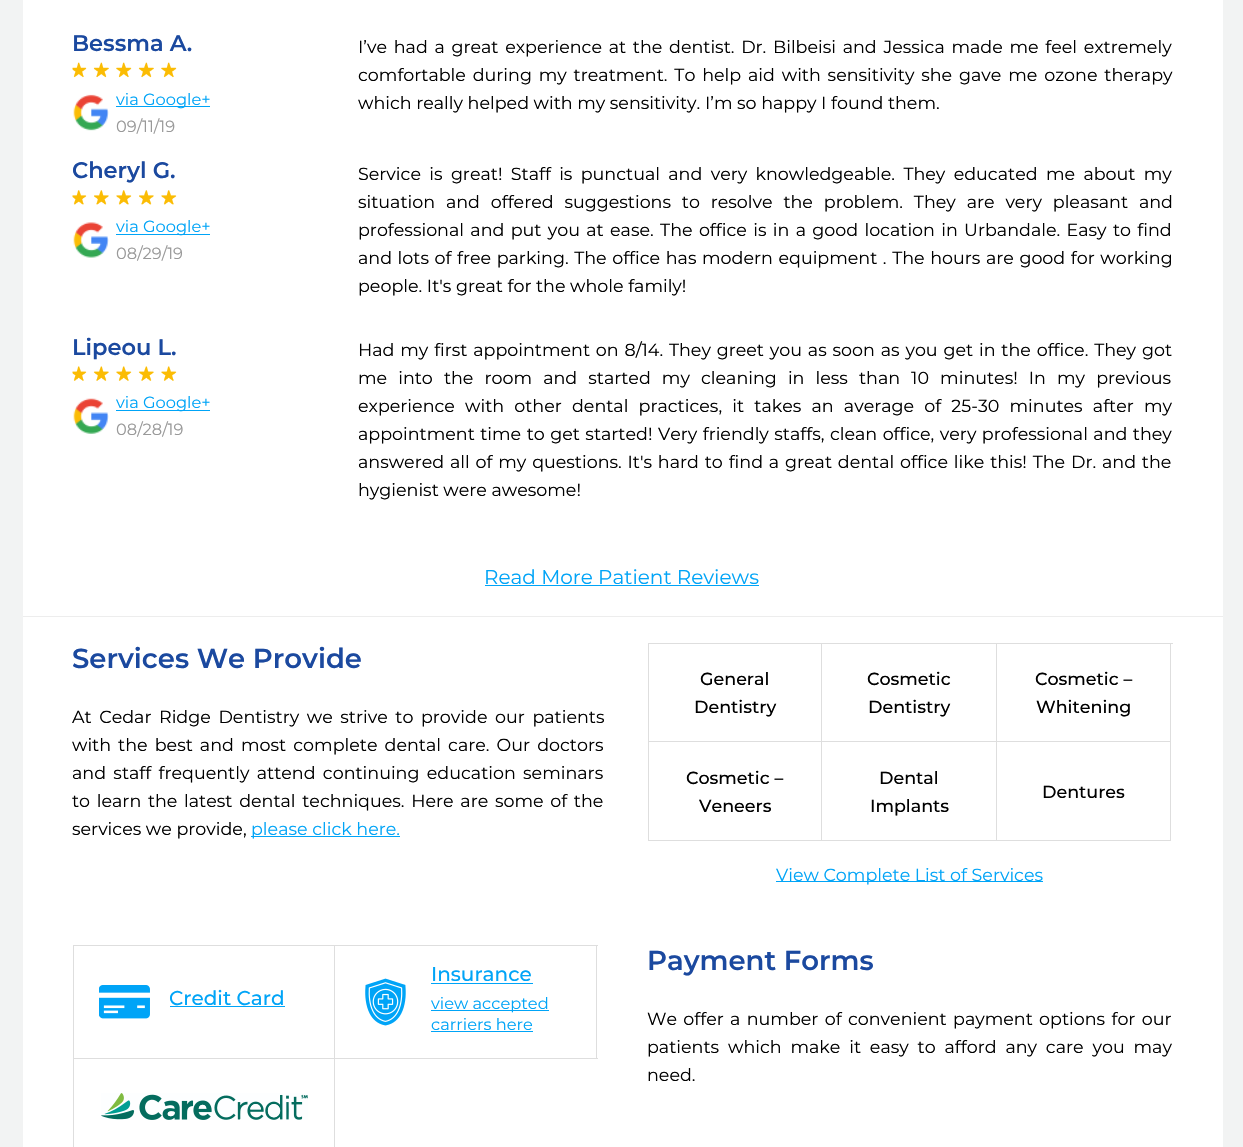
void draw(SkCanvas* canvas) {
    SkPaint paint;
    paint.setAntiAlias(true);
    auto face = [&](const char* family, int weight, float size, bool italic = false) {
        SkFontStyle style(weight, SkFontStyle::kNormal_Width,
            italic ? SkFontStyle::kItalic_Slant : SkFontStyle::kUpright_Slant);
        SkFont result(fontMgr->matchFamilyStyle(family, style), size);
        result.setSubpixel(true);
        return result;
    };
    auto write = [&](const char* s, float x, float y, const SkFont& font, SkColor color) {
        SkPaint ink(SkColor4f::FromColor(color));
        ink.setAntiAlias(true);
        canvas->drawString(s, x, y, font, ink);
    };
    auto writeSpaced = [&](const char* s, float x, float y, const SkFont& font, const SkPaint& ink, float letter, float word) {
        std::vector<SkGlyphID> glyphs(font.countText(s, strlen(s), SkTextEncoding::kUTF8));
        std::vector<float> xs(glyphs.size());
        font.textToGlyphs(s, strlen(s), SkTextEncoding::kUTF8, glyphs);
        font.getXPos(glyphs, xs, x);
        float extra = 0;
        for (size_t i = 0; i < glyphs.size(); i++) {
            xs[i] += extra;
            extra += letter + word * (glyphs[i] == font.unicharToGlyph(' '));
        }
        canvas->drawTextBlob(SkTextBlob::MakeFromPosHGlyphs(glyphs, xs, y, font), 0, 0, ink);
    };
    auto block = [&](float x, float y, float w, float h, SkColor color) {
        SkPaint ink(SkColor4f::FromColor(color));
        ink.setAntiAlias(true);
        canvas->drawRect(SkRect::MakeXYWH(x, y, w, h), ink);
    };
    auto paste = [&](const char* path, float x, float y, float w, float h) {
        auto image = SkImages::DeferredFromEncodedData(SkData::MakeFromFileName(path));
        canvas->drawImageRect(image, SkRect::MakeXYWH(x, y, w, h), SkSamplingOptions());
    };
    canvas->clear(SkColorSetRGB(242, 243, 243));
    block(23, 0, 1200, 1147, SK_ColorWHITE);
    block(23, 616, 1200, 1, SkColorSetRGB(237, 237, 237));
    auto kFont1 = face("Montserrat", 600, 22.5f);
    write("Bessma A.", 72, 51, kFont1, SkColorSetRGB(27, 73, 159));
    paste("pic1.png", 72, 62, 15, 16);
    paste("pic2.png", 93, 62, 16, 16);
    paste("pic3.png", 116, 62, 16, 16);
    paste("pic2.png", 138, 62, 16, 16);
    paste("pic3.png", 161, 62, 16, 16);
    paste("pic4.png", 73, 94, 36, 37);
    block(116, 106, 94, 1, SkColorSetRGB(0, 164, 247));
    auto kFont2 = face("Montserrat", 400, 16.25f);
    write("via Google+", 116, 105, kFont2, SkColorSetRGB(0, 164, 247));
    write("09/11/19", 116, 132, kFont2, SkColorSetRGB(153, 153, 153));
    auto kFont3 = face("Montserrat", 400, 17.5f);
    paint.setColor(SK_ColorBLACK);
    writeSpaced("I’ve had a great experience at the dentist. Dr. Bilbeisi and Jessica made me feel extremely", 358, 53, kFont3, paint, 0, 2.1f);
    writeSpaced("comfortable during my treatment. To help aid with sensitivity she gave me ozone therapy", 358, 81, kFont3, paint, 0, 2.25f);
    write("which really helped with my sensitivity. I’m so happy I found them.", 358, 109, kFont3, SK_ColorBLACK);
    write("Cheryl G.", 72, 178, kFont1, SkColorSetRGB(27, 73, 159));
    paste("pic5.png", 72, 190, 15, 15);
    paste("pic6.png", 94, 190, 15, 15);
    paste("pic7.png", 116, 190, 16, 15);
    paste("pic6.png", 139, 190, 15, 15);
    paste("pic7.png", 161, 190, 16, 15);
    paste("pic8.png", 73, 222, 36, 36);
    block(116, 234, 94, 1, SkColorSetRGB(0, 164, 247));
    write("via Google+", 116, 232, kFont2, SkColorSetRGB(0, 164, 247));
    write("08/29/19", 116, 259, kFont2, SkColorSetRGB(153, 153, 153));
    writeSpaced("Service is great! Staff is punctual and very knowledgeable. They educated me about my", 358, 180, kFont3, paint, 0, 3.75f);
    writeSpaced("situation and offered suggestions to resolve the problem. They are very pleasant and", 358, 208, kFont3, paint, 0, 6.25f);
    writeSpaced("professional and put you at ease. The office is in a good location in Urbandale. Easy to find", 358, 236, kFont3, paint, 0, 1.75f);
    writeSpaced("and lots of free parking. The office has modern equipment . The hours are good for working", 358, 264, kFont3, paint, 0, 1);
    write("people. It's great for the whole family!", 358, 292, kFont3, SK_ColorBLACK);
    write("Lipeou L.", 72, 355, kFont1, SkColorSetRGB(27, 73, 159));
    paste("pic9.png", 72, 366, 15, 15);
    paste("pic10.png", 93, 366, 16, 15);
    paste("pic11.png", 116, 366, 16, 15);
    paste("pic10.png", 138, 366, 16, 15);
    paste("pic11.png", 161, 366, 16, 15);
    paste("pic12.png", 73, 398, 36, 36);
    block(116, 410, 94, 1, SkColorSetRGB(0, 164, 247));
    write("via Google+", 116, 408, kFont2, SkColorSetRGB(0, 164, 247));
    write("08/28/19", 116, 435, kFont2, SkColorSetRGB(153, 153, 153));
    writeSpaced("Had my first appointment on 8/14. They greet you as soon as you get in the office. They got", 358, 356, kFont3, paint, 0, 1.25f);
    writeSpaced("me into the room and started my cleaning in less than 10 minutes! In my previous", 358, 384, kFont3, paint, 0, 6.5f);
    writeSpaced("experience with other dental practices, it takes an average of 25-30 minutes after my", 358, 412, kFont3, paint, 0, 5.6f);
    writeSpaced("appointment time to get started! Very friendly staffs, clean office, very professional and they", 358, 440, kFont3, paint, 0, 0.9f);
    writeSpaced("answered all of my questions. It's hard to find a great dental office like this! The Dr. and the", 358, 468, kFont3, paint, 0, 1.25f);
    write("hygienist were awesome!", 358, 496, kFont3, SK_ColorBLACK);
    auto kFont4 = face("Montserrat", 400, 20);
    write("Read More Patient Reviews", 484, 584, kFont4, SkColorSetRGB(0, 164, 247));
    block(485, 585, 274, 1, SkColorSetRGB(0, 164, 247));
    auto kFont5 = face("Montserrat", 600, 27.5f);
    write("Services We Provide", 72, 668, kFont5, SkColorSetRGB(27, 73, 159));
    writeSpaced("At Cedar Ridge Dentistry we strive to provide our patients", 72, 723, kFont3, paint, 0, 3);
    writeSpaced("with the best and most complete dental care. Our doctors", 72, 751, kFont3, paint, 0, 2.5f);
    writeSpaced("and staff frequently attend continuing education seminars", 72, 779, kFont3, paint, 0, 2.75f);
    writeSpaced("to learn the latest dental techniques. Here are some of the", 72, 807, kFont3, paint, 0, 2.1f);
    write("services we provide,", 72, 835, kFont3, SK_ColorBLACK);
    block(251, 836, 149, 1, SkColorSetRGB(0, 164, 247));
    write("please click here.", 251, 835, kFont3, SkColorSetRGB(0, 164, 247));
    block(648, 643, 525, 1, SkColorSetRGB(222, 222, 222));
    block(648, 643, 1, 198, SkColorSetRGB(222, 222, 222));
    block(821, 644, 1, 197, SkColorSetRGB(222, 222, 222));
    block(649, 741, 174, 1, SkColorSetRGB(222, 222, 222));
    auto kFont6 = face("Montserrat", 500, 17.5f);
    write("General", 700, 685, kFont6, SK_ColorBLACK);
    write("Dentistry", 694, 713, kFont6, SK_ColorBLACK);
    block(996, 644, 1, 197, SkColorSetRGB(222, 222, 222));
    block(823, 741, 175, 1, SkColorSetRGB(222, 222, 222));
    write("Cosmetic", 867, 685, kFont6, SK_ColorBLACK);
    write("Dentistry", 868, 713, kFont6, SK_ColorBLACK);
    block(1170, 644, 1, 197, SkColorSetRGB(222, 222, 222));
    block(998, 741, 173, 1, SkColorSetRGB(222, 222, 222));
    write("Cosmetic –", 1035, 685, kFont6, SK_ColorBLACK);
    write("Whitening", 1036, 713, kFont6, SK_ColorBLACK);
    block(649, 840, 522, 1, SkColorSetRGB(222, 222, 222));
    write("Cosmetic –", 686, 784, kFont6, SK_ColorBLACK);
    write("Veneers", 699, 812, kFont6, SK_ColorBLACK);
    write("Dental", 879, 784, kFont6, SK_ColorBLACK);
    write("Implants", 870, 812, kFont6, SK_ColorBLACK);
    write("Dentures", 1042, 798, kFont6, SK_ColorBLACK);
    block(776, 881, 267, 1, SkColorSetRGB(0, 164, 247));
    write("View Complete List of Services", 776, 881, kFont3, SkColorSetRGB(0, 164, 247));
    block(73, 945, 525, 1, SkColorSetRGB(222, 222, 222));
    block(73, 945, 1, 202, SkColorSetRGB(222, 222, 222));
    block(334, 946, 1, 201, SkColorSetRGB(222, 222, 222));
    block(74, 1058, 261, 1, SkColorSetRGB(222, 222, 222));
    paste("pic13.png", 99, 985, 51, 34);
    auto kFont7 = face("Montserrat", 500, 20);
    write("Credit Card", 169, 1005, kFont7, SkColorSetRGB(0, 164, 247));
    block(170, 1006, 115, 1, SkColorSetRGB(0, 164, 247));
    block(596, 946, 1, 113, SkColorSetRGB(222, 222, 222));
    block(335, 1058, 263, 1, SkColorSetRGB(222, 222, 222));
    paste("pic14.png", 365, 978, 41, 48);
    write("Insurance", 431, 981, kFont7, SkColorSetRGB(0, 164, 247));
    block(431, 983, 102, 1, SkColorSetRGB(0, 164, 247));
    block(431, 1010, 118, 1, SkColorSetRGB(0, 164, 247));
    write("view accepted", 431, 1009, kFont2, SkColorSetRGB(0, 164, 247));
    write("carriers here", 431, 1030, kFont2, SkColorSetRGB(0, 164, 247));
    block(431, 1031, 102, 1, SkColorSetRGB(0, 164, 247));
    paste("pic15.png", 101, 1093, 207, 27);
    write("Payment Forms", 647, 970, kFont5, SkColorSetRGB(27, 73, 159));
    writeSpaced("We offer a number of convenient payment options for our", 647, 1025, kFont3, paint, 0, 1.75f);
    write("patients", 647, 1053, kFont3, SK_ColorBLACK);
    writeSpaced("which make it easy to afford any care you may", 728, 1053, kFont3, paint, 0, 4.25f);
    write("need.", 647, 1081, kFont3, SK_ColorBLACK);
}
